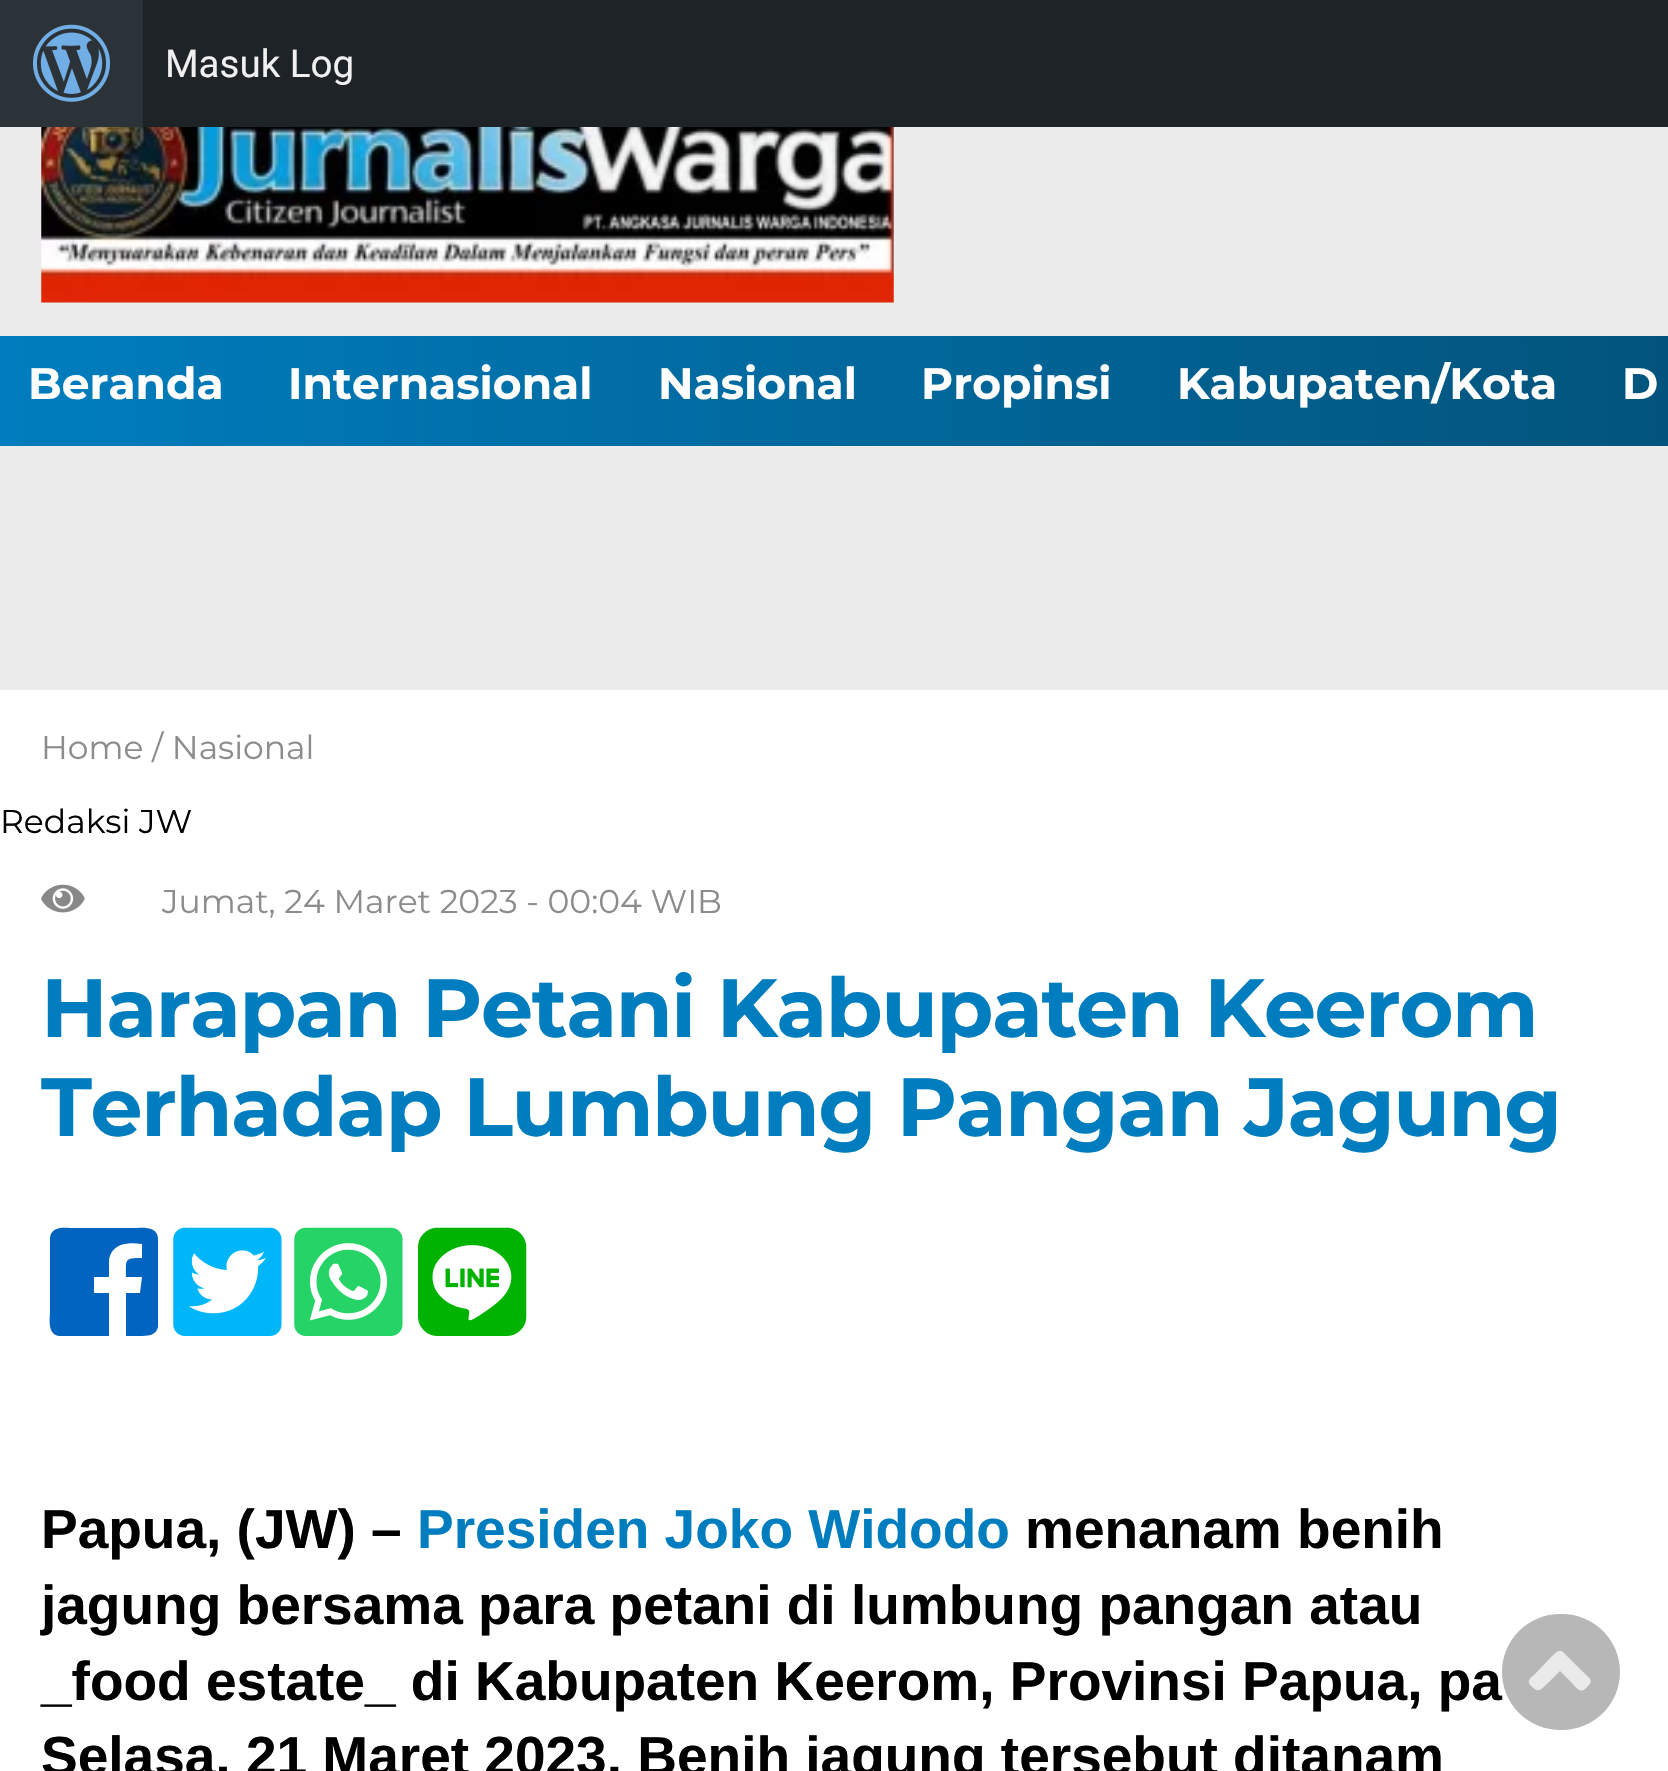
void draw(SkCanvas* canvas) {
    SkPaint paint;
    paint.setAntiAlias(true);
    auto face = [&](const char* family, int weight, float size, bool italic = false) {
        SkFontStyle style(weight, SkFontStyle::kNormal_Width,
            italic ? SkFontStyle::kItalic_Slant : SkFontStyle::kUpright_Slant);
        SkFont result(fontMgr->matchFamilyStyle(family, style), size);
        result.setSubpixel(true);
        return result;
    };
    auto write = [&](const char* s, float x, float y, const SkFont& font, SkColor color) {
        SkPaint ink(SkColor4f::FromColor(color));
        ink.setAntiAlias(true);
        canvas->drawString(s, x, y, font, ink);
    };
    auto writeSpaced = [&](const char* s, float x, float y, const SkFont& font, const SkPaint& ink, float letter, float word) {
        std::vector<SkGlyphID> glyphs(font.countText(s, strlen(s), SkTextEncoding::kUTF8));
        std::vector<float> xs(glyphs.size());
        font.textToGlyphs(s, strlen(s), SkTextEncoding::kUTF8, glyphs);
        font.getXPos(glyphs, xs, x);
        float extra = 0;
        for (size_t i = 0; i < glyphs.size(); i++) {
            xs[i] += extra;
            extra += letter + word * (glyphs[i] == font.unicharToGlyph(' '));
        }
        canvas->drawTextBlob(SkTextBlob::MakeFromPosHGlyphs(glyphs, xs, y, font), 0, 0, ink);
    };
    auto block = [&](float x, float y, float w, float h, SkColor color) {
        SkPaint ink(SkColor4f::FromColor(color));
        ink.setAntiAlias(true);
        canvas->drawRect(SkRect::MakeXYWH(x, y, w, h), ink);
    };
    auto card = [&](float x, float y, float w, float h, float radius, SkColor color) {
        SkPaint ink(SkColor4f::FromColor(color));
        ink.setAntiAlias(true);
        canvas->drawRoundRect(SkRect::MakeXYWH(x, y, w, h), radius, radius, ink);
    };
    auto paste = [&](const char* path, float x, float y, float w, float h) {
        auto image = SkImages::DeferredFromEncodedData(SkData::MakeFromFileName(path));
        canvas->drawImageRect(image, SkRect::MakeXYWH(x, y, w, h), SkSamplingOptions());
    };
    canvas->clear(SkColorSetRGB(236, 236, 236));
    block(143, 0, 1525, 127, SkColorSetRGB(29, 35, 39));
    block(0, 0, 143, 127, SkColorSetRGB(44, 51, 56));
    paste("pic1.png", 33, 24, 77, 78);
    auto kFont1 = face("Roboto", 400, 38.5f);
    write("Masuk Log", 165, 77, kFont1, SkColorSetRGB(240, 240, 241));
    paste("pic2.png", 41, 127, 853, 176);
    {
        const SkColor colors[] = {SkColorSetRGB(0, 125, 190), SkColorSetRGB(2, 84, 124)};
        const float stops[] = {0, 1};
        const SkPoint ends[] = {{0, 391}, {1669, 390}};
        paint.setShader(SkGradientShader::MakeLinear(ends, colors, stops, 2, SkTileMode::kClamp));
        paint.setAlpha(255);
    }
    canvas->drawRect(SkRect::MakeXYWH(0, 336, 1668, 110), paint);
    auto kFont2 = face("Montserrat", 700, 44);
    write("Beranda", 28, 399, kFont2, SK_ColorWHITE);
    write("Internasional", 288, 399, kFont2, SK_ColorWHITE);
    write("Nasional", 658, 399, kFont2, SK_ColorWHITE);
    write("Propinsi", 921, 399, kFont2, SK_ColorWHITE);
    write("Kabupaten/Kota", 1177, 399, kFont2, SK_ColorWHITE);
    write("D", 1622, 399, kFont2, SK_ColorWHITE);
    block(0, 690, 1668, 1081, SK_ColorWHITE);
    auto kFont3 = face("Montserrat", 400, 33);
    write("Home / Nasional", 41, 759, kFont3, SkColorSetRGB(140, 140, 140));
    write("Redaksi JW", 0, 833, kFont3, SK_ColorBLACK);
    paste("pic3.png", 41, 884, 44, 29);
    write("Jumat, 24 Maret 2023 - 00:04 WIB", 162, 913, kFont3, SkColorSetRGB(140, 140, 140));
    auto kFont4 = face("Montserrat", 700, 82.5f);
    paint.setShader(nullptr);
    paint.setColor(SkColorSetRGB(0, 125, 190));
    writeSpaced("Harapan Petani Kabupaten Keerom", 41, 1037, kFont4, paint, -1.4f, 0);
    writeSpaced("Terhadap Lumbung Pangan Jagung", 41, 1136, kFont4, paint, -1.4f, 0);
    paint.setColor(SkColorSetRGB(1, 100, 193));
    canvas->drawPath(SkPathBuilder().moveTo(158, 1239).lineTo(158, 1327).cubicTo(156, 1336, 147, 1336, 139, 1336).lineTo(126, 1336).lineTo(126, 1293).lineTo(140, 1293).lineTo(142, 1277).lineTo(126, 1277).cubicTo(126, 1259, 124, 1258, 142, 1258).lineTo(142, 1244).cubicTo(128, 1242, 112, 1243, 109, 1260).lineTo(109, 1277).lineTo(94, 1277).lineTo(94, 1293).lineTo(109, 1293).lineTo(109, 1336).lineTo(59, 1336).cubicTo(47, 1334, 50, 1319, 50, 1310).lineTo(50, 1238).cubicTo(51, 1225, 66, 1228, 75, 1228).lineTo(132, 1228).cubicTo(141, 1228, 158, 1225, 158, 1239).close().detach(), paint);
    paste("pic4.png", 173, 1227, 109, 109);
    paste("pic5.png", 294, 1227, 109, 109);
    paste("pic6.png", 418, 1227, 109, 109);
    auto kFont5 = face("Liberation Sans", 700, 55);
    write("Papua, (JW) –", 41, 1548, kFont5, SK_ColorBLACK);
    write("Presiden Joko Widodo", 417, 1548, kFont5, SkColorSetRGB(0, 125, 190));
    write("menanam benih", 1025, 1548, kFont5, SK_ColorBLACK);
    write("jagung bersama para petani di lumbung pangan atau", 41, 1624, kFont5, SK_ColorBLACK);
    write("_food estate_ di Kabupaten Keerom, Provinsi Papua, pa", 41, 1700, kFont5, SK_ColorBLACK);
    write("Selasa, 21 Maret 2023. Benih jagung tersebut ditanam", 41, 1775, kFont5, SK_ColorBLACK);
    card(1502, 1614, 118, 116, 58, SkColorSetARGB(179, 153, 153, 153));
    paint.setColor(SkColorSetARGB(179, 255, 255, 255));
    canvas->drawPath(SkPathBuilder().moveTo(1563, 1652).lineTo(1581, 1670).cubicTo(1591, 1680, 1595, 1680, 1585, 1689).cubicTo(1580, 1694, 1575, 1686, 1572, 1683).lineTo(1560, 1671).lineTo(1548, 1683).cubicTo(1545, 1685, 1541, 1692, 1536, 1690).lineTo(1531, 1686).cubicTo(1526, 1681, 1530, 1678, 1535, 1674).lineTo(1552, 1656).cubicTo(1555, 1654, 1559, 1648, 1563, 1652).close().detach(), paint);
}
